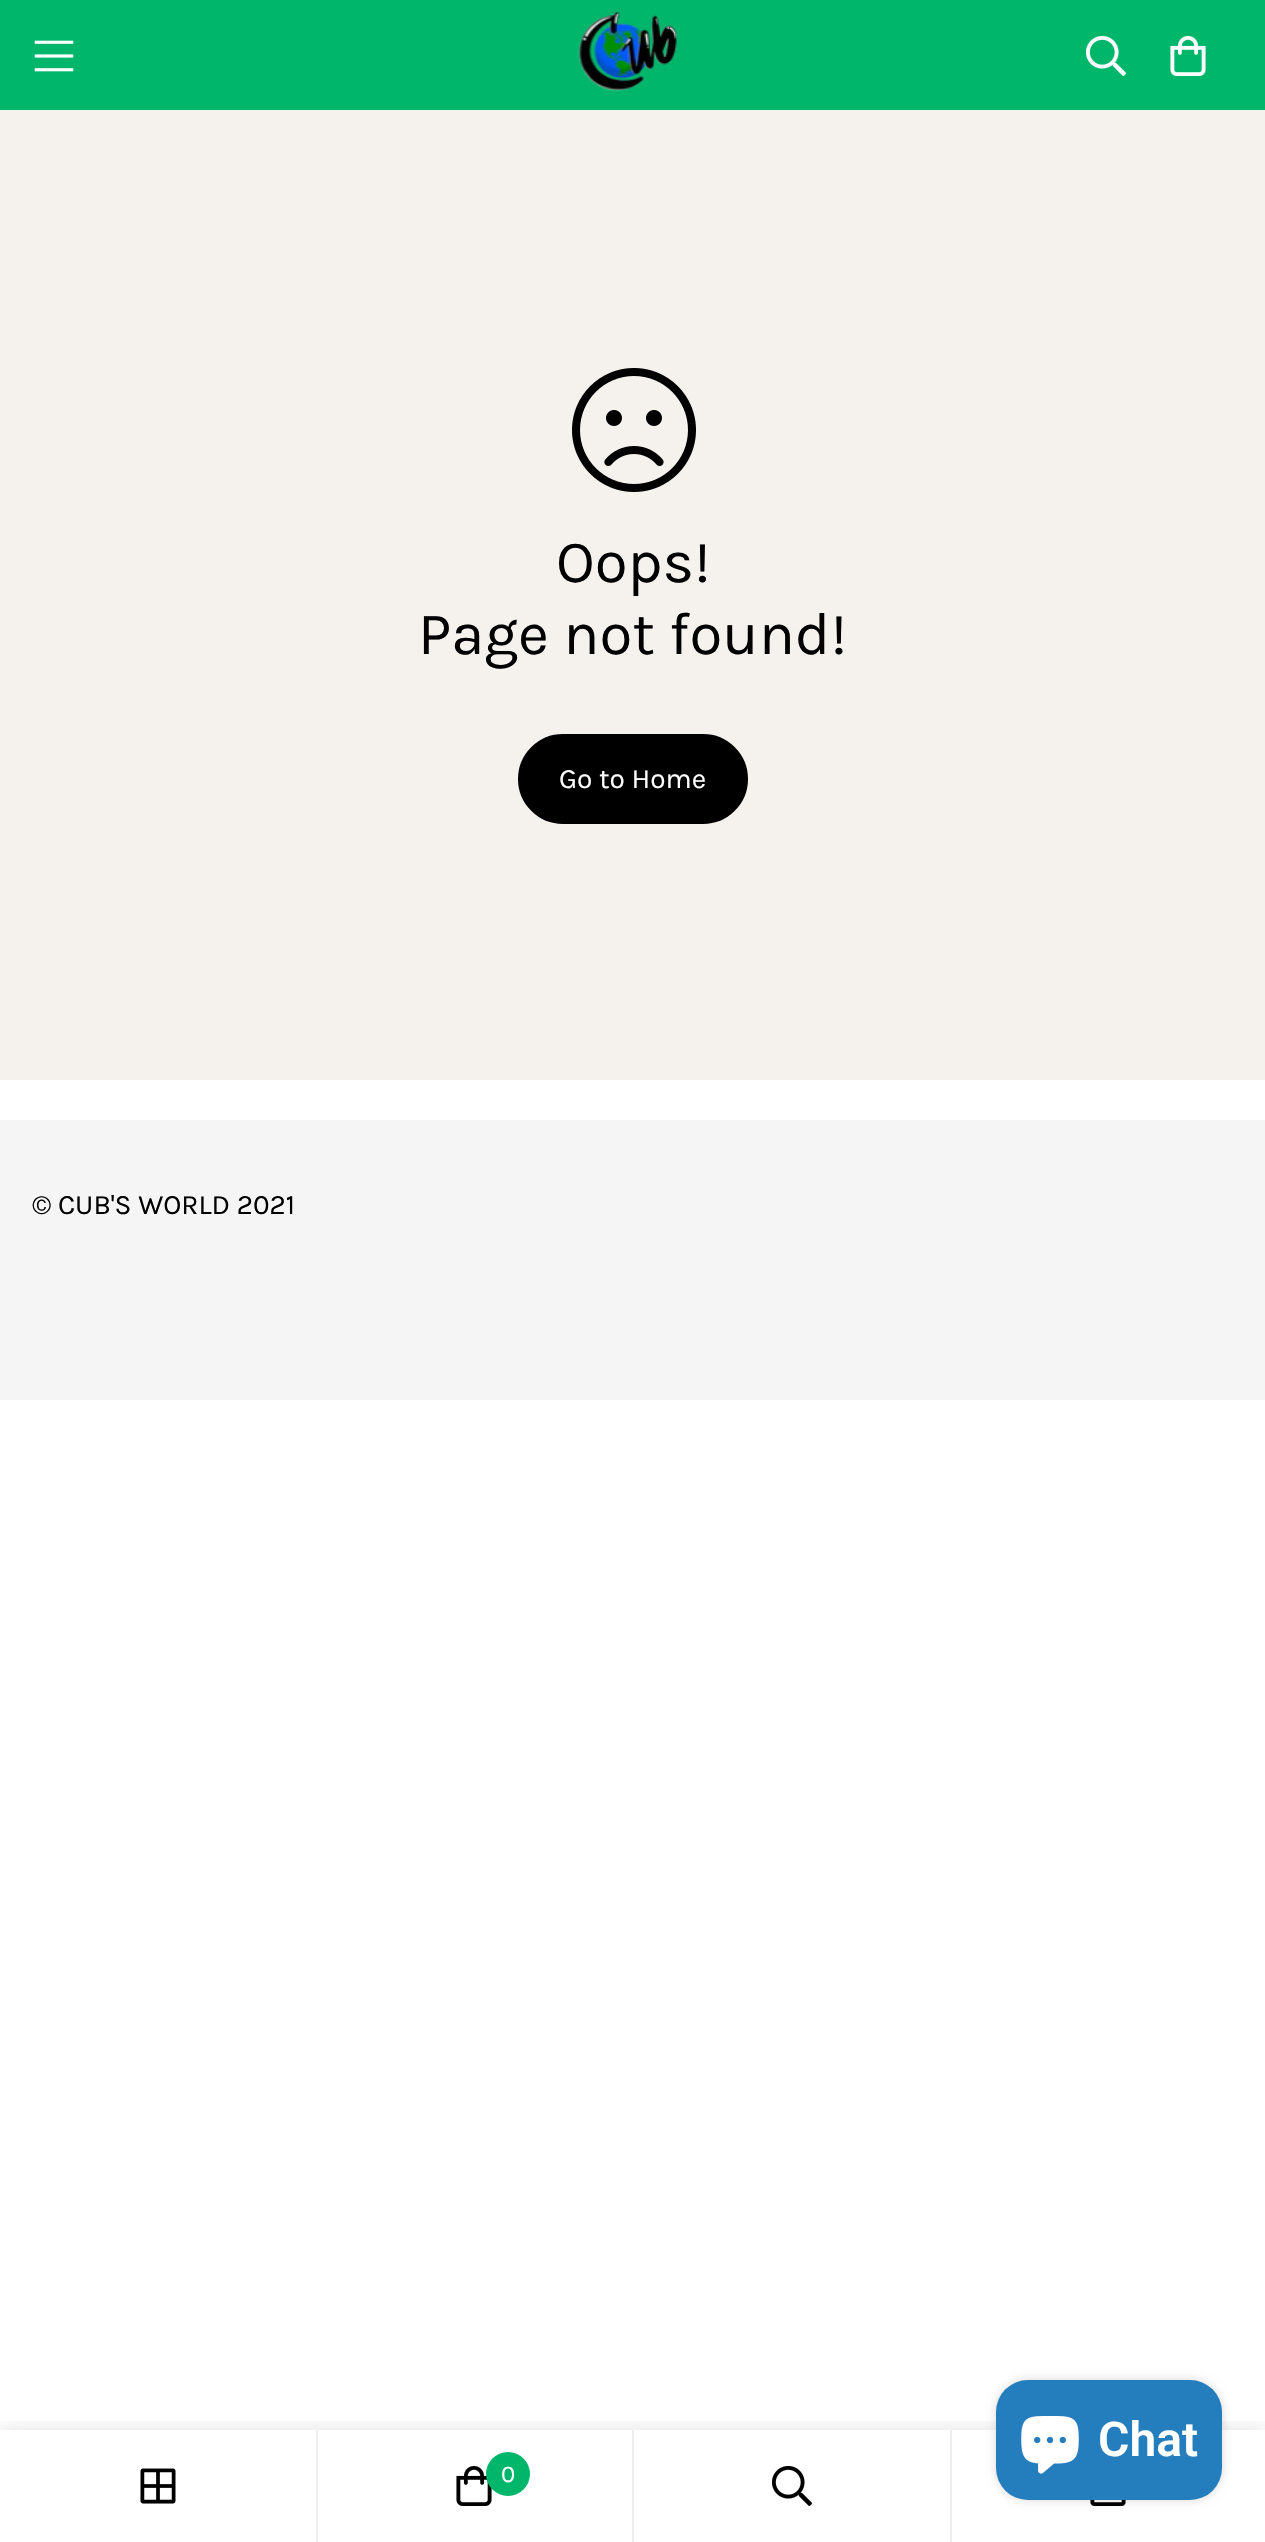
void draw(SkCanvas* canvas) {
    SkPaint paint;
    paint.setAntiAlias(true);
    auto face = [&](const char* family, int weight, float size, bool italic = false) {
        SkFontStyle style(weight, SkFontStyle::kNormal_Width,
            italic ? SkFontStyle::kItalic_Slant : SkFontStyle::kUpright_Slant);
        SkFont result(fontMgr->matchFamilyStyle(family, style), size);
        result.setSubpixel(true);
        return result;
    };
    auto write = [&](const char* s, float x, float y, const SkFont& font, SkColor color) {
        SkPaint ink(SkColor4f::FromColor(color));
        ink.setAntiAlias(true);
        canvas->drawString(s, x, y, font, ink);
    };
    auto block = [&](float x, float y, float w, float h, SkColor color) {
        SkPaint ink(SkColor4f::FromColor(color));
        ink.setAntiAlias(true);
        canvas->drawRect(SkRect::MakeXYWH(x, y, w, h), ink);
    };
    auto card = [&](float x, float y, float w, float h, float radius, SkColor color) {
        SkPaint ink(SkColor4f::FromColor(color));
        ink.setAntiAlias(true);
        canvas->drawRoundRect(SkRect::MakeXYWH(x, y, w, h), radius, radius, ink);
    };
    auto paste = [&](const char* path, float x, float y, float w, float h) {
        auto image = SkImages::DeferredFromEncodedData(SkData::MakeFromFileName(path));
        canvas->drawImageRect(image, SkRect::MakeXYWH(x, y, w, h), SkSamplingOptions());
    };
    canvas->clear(SK_ColorWHITE);
    block(0, 0, 1265, 110, SkColorSetRGB(0, 182, 107));
    paste("pic1.png", 34, 40, 40, 32);
    paste("pic2.png", 577, 11, 101, 81);
    paste("pic3.png", 1086, 36, 40, 40);
    paste("pic4.png", 1170, 36, 36, 40);
    block(0, 110, 1265, 970, SkColorSetRGB(245, 241, 237));
    paste("pic5.png", 572, 368, 124, 124);
    auto kFont1 = face("Karla", 400, 60);
    write("Oops!", 556, 582, kFont1, SK_ColorBLACK);
    write("Page not found!", 418, 654, kFont1, SK_ColorBLACK);
    paint.setColor(SK_ColorBLACK);
    canvas->drawRoundRect(SkRect::MakeXYWH(519, 735, 228, 88), 44, 44, paint);
    paint.setStyle(SkPaint::kStroke_Style);
    paint.setStrokeWidth(2);
    canvas->drawRoundRect(SkRect::MakeXYWH(519, 735, 228, 88), 44, 44, paint);
    auto kFont2 = face("Karla", 400, 28);
    write("Go to Home", 559, 788, kFont2, SK_ColorWHITE);
    block(0, 1120, 1265, 280, SkColorSetRGB(245, 245, 245));
    write("© CUB'S WORLD 2021", 32, 1214, kFont2, SK_ColorBLACK);
    canvas->save();
    canvas->clipRect(SkRect::MakeXYWH(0, 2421, 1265, 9));
    paint.setStyle(SkPaint::kFill_Style);
    paint.setColor(SkColorSetARGB(28, 0, 0, 0));
    paint.setMaskFilter(SkMaskFilter::MakeBlur(kNormal_SkBlurStyle, 10));
    canvas->drawRect(SkRect::MakeXYWH(0, 2430, 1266, 112), paint);
    paint.setMaskFilter(nullptr);
    canvas->restore();
    paste("pic10.png", 1090, 2500, 36, 6);
    paint.setColor(SkColorSetARGB(38, 0, 0, 0));
    paint.setMaskFilter(SkMaskFilter::MakeBlur(kNormal_SkBlurStyle, 5));
    canvas->drawRoundRect(SkRect::MakeXYWH(996, 2380, 226, 120), 32, 32, paint);
    paint.setMaskFilter(nullptr);
    card(996, 2380, 226, 120, 32, SkColorSetRGB(36, 125, 188));
    paste("pic6.png", 1021, 2416, 58, 58);
    auto kFont3 = face("Roboto", 600, 48);
    write("Chat", 1098, 2456, kFont3, SK_ColorWHITE);
    block(316, 2430, 2, 112, SkColorSetRGB(238, 238, 238));
    paste("pic7.png", 140, 2468, 36, 36);
    block(632, 2430, 2, 112, SkColorSetRGB(238, 238, 238));
    paste("pic8.png", 456, 2466, 36, 40);
    paint.setColor(SkColorSetRGB(0, 182, 107));
    canvas->drawCircle(508, 2474, 22, paint);
    auto kFont4 = face("Karla", 400, 24);
    write("0", 501, 2482, kFont4, SK_ColorWHITE);
    block(950, 2430, 2, 112, SkColorSetRGB(238, 238, 238));
    paste("pic9.png", 772, 2466, 40, 40);
}
